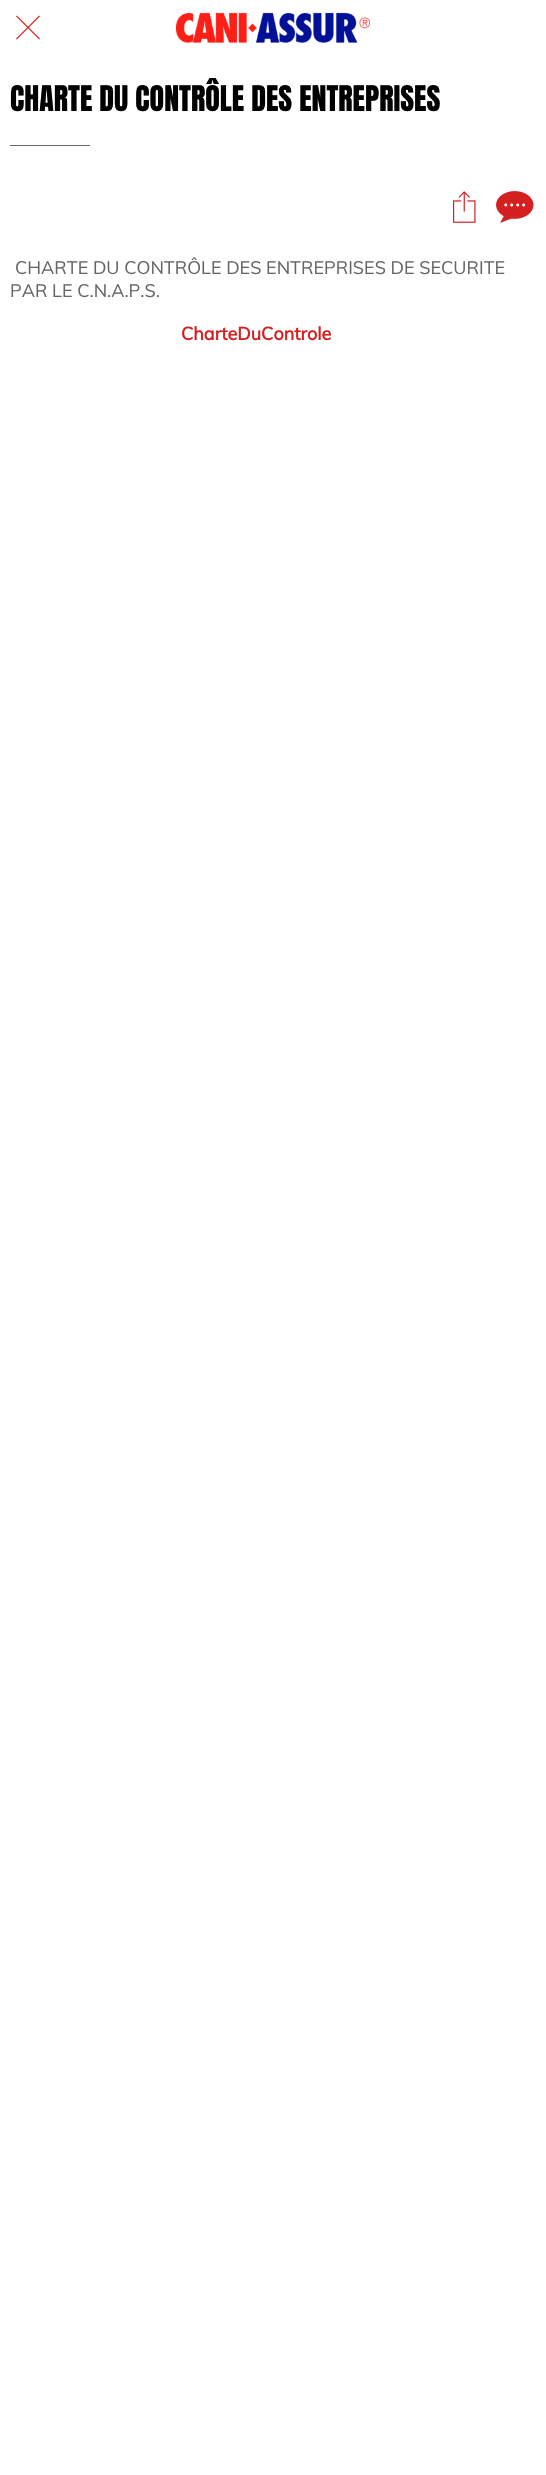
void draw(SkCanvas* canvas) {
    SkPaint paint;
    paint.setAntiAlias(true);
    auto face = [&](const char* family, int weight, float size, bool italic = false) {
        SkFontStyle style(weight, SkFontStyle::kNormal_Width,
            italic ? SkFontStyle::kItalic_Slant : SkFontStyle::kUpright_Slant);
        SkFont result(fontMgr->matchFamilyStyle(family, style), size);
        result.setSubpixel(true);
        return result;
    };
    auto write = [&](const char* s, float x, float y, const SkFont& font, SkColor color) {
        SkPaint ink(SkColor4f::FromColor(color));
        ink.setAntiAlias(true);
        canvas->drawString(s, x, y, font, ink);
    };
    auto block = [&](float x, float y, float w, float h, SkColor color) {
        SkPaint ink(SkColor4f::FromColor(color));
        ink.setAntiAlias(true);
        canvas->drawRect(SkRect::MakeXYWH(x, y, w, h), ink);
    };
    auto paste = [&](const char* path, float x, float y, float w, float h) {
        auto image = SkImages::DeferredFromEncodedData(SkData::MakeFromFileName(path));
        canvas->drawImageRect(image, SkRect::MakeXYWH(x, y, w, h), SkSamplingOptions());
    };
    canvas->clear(SK_ColorWHITE);
    paste("pic1.png", 16, 15, 24, 25);
    paste("pic2.png", 176, 12, 194, 31);
    auto kFont1 = face("Anton", 400, 30);
    write("CHARTE DU CONTRÔLE DES ENTREPRISES", 10, 111, kFont1, SK_ColorBLACK);
    block(10, 145, 80, 1, SkColorSetRGB(102, 102, 102));
    paste("pic3.png", 453, 191, 23, 32);
    paste("pic4.png", 496, 191, 38, 32);
    auto kFont2 = face("Muli", 400, 18);
    write("CHARTE DU CONTRÔLE DES ENTREPRISES DE SECURITE", 15, 274, kFont2, SkColorSetRGB(102, 102, 102));
    write("PAR LE C.N.A.P.S.", 10, 297, kFont2, SkColorSetRGB(102, 102, 102));
    auto kFont3 = face("Muli", 700, 18);
    write("CharteDuControle", 181, 340, kFont3, SkColorSetRGB(212, 32, 32));
}
